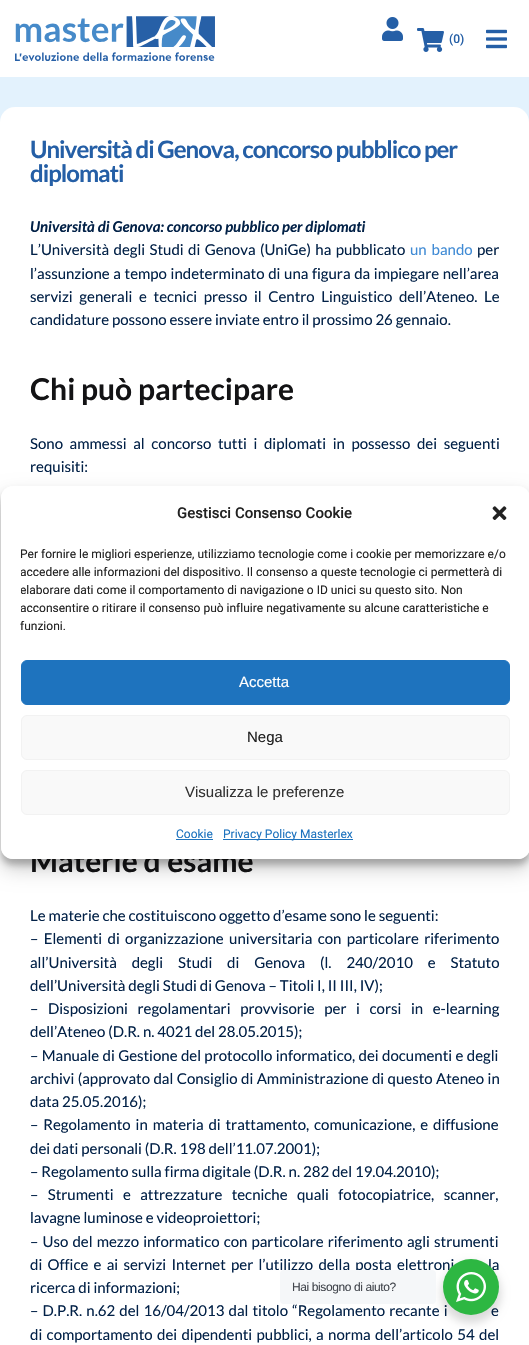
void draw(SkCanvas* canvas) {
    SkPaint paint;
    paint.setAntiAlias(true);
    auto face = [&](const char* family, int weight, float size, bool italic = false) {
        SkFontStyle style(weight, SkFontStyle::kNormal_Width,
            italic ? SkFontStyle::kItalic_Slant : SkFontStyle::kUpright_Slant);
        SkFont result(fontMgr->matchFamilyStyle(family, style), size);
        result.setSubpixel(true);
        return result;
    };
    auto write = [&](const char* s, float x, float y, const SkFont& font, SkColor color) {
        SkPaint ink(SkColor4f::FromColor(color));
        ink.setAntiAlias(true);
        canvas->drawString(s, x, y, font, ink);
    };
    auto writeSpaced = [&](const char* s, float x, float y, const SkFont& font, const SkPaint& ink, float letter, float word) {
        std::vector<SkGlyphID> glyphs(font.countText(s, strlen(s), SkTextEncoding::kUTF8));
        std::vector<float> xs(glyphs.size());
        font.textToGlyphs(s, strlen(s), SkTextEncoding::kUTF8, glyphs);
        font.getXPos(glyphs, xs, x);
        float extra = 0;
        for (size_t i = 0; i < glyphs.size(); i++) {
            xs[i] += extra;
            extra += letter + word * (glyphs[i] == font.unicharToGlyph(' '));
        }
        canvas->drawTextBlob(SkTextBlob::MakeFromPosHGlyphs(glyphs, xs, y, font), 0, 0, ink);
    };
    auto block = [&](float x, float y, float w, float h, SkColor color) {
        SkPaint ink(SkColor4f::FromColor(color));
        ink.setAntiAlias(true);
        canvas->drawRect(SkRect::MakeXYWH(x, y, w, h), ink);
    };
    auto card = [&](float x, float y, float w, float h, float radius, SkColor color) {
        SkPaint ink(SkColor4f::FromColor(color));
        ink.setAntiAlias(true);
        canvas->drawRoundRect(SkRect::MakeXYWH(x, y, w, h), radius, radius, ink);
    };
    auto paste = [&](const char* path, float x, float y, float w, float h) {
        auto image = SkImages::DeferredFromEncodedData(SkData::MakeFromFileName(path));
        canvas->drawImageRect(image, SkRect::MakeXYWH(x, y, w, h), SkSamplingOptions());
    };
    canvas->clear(SK_ColorWHITE);
    paste("pic1.png", 15, 16, 200, 45);
    paste("pic2.png", 382, 17, 21, 24);
    paste("pic3.png", 417, 28, 27, 24);
    auto kFont1 = face("Roboto", 500, 12);
    write("(0)", 449, 43, kFont1, SkColorSetRGB(37, 95, 166));
    paste("pic4.png", 486, 29, 21, 20);
    block(0, 77, 529, 45, SkColorSetRGB(227, 242, 253));
    card(0, 107, 529, 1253, 15, SK_ColorWHITE);
    auto kFont2 = face("Lato", 700, 24);
    paint.setColor(SkColorSetRGB(37, 95, 166));
    writeSpaced("Università di Genova, concorso pubblico per", 30, 158, kFont2, paint, -1, 0);
    writeSpaced("diplomati", 30, 182, kFont2, paint, -1, 0);
    auto kFont3 = face("Lato", 700, 15, true);
    write("Università di Genova: concorso pubblico per diplomati", 30, 232, kFont3, SkColorSetRGB(2, 33, 71));
    auto kFont4 = face("Lato", 400, 15);
    paint.setColor(SkColorSetRGB(2, 33, 71));
    writeSpaced("L’Università degli Studi di Genova (UniGe) ha pubblicato", 30, 255, kFont4, paint, 0, 1.5f);
    paint.setColor(SkColorSetRGB(64, 139, 213));
    writeSpaced("un bando", 410, 255, kFont4, paint, 0, 2);
    write("per", 477, 255, kFont4, SkColorSetRGB(2, 33, 71));
    paint.setColor(SkColorSetRGB(2, 33, 71));
    writeSpaced("l’assunzione a tempo indeterminato di una figura da impiegare nell’area", 30, 279, kFont4, paint, 0, 0.75f);
    writeSpaced("servizi generali e tecnici presso il Centro Linguistico dell’Ateneo. Le", 30, 302, kFont4, paint, 0, 3.75f);
    write("candidature possono essere inviate entro il prossimo 26 gennaio.", 30, 325, kFont4, SkColorSetRGB(2, 33, 71));
    auto kFont5 = face("Lato", 700, 30);
    write("Chi può partecipare", 30, 400, kFont5, SkColorSetRGB(19, 19, 21));
    writeSpaced("Sono ammessi al concorso tutti i diplomati in possesso dei seguenti", 30, 449, kFont4, paint, 0, 3.75f);
    write("requisiti:", 30, 472, kFont4, SkColorSetRGB(2, 33, 71));
    write("Materie d’esame", 30, 872, kFont5, SkColorSetRGB(19, 19, 21));
    write("Le materie che costituiscono oggetto d’esame sono le seguenti:", 30, 921, kFont4, SkColorSetRGB(2, 33, 71));
    writeSpaced("– Elementi di organizzazione universitaria con particolare riferimento", 30, 944, kFont4, paint, 0, 2.5f);
    writeSpaced("all’Università degli Studi di Genova (l. 240/2010 e Statuto", 30, 968, kFont4, paint, 0, 12);
    write("dell’Università degli Studi di Genova – Titoli I, II III, IV);", 30, 991, kFont4, SkColorSetRGB(2, 33, 71));
    writeSpaced("– Disposizioni regolamentari provvisorie per i corsi in e-learning", 30, 1014, kFont4, paint, 0, 6.75f);
    write("dell’Ateneo (D.R. n. 4021 del 28.05.2015);", 30, 1037, kFont4, SkColorSetRGB(2, 33, 71));
    writeSpaced("– Manuale di Gestione del protocollo informatico, dei documenti e degli", 30, 1061, kFont4, paint, 0, 0.5f);
    writeSpaced("archivi (approvato dal Consiglio di Amministrazione di questo Ateneo in", 30, 1084, kFont4, paint, 0, 0.5f);
    write("data 25.05.2016);", 30, 1107, kFont4, SkColorSetRGB(2, 33, 71));
    writeSpaced("– Regolamento in materia di trattamento, comunicazione, e diffusione", 30, 1130, kFont4, paint, 0, 2);
    write("dei dati personali (D.R. 198 dell’11.07.2001);", 30, 1154, kFont4, SkColorSetRGB(2, 33, 71));
    write("– Regolamento sulla firma digitale (D.R. n. 282 del 19.04.2010);", 30, 1177, kFont4, SkColorSetRGB(2, 33, 71));
    writeSpaced("– Strumenti e attrezzature tecniche quali fotocopiatrice, scanner,", 30, 1200, kFont4, paint, 0, 6.5f);
    write("lavagne luminose e videoproiettori;", 30, 1223, kFont4, SkColorSetRGB(2, 33, 71));
    writeSpaced("– Uso del mezzo informatico con particolare riferimento agli strumenti", 30, 1247, kFont4, paint, 0, 1.25f);
    writeSpaced("di Office e ai servizi Internet per l’utilizzo della posta elettroni", 30, 1270, kFont4, paint, 0, 2.4f);
    writeSpaced("la", 488, 1270, kFont4, paint, 0, 2.4f);
    write("ricerca di informazioni;", 30, 1293, kFont4, SkColorSetRGB(2, 33, 71));
    writeSpaced("– D.P.R. n.62 del 16/04/2013 dal titolo “Regolamento recante i", 30, 1316, kFont4, paint, 0, 1.25f);
    writeSpaced("e", 491, 1316, kFont4, paint, 0, 1.25f);
    writeSpaced("di comportamento dei dipendenti pubblici, a norma dell’articolo 54 del", 30, 1340, kFont4, paint, 0, 1.5f);
    canvas->save();
    canvas->clipPath(SkPathBuilder(SkPathFillType::kEvenOdd).moveTo(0, 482).lineTo(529, 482).lineTo(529, 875).lineTo(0, 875).close().moveTo(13, 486).lineTo(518, 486).cubicTo(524.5f, 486, 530, 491.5f, 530, 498).lineTo(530, 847).cubicTo(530, 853.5f, 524.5f, 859, 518, 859).lineTo(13, 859).cubicTo(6.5f, 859, 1, 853.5f, 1, 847).lineTo(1, 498).cubicTo(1, 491.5f, 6.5f, 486, 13, 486).close().detach(), true);
    paint.setColor(SkColorSetARGB(59, 0, 0, 0));
    paint.setMaskFilter(SkMaskFilter::MakeBlur(kNormal_SkBlurStyle, 3));
    canvas->drawRoundRect(SkRect::MakeXYWH(1, 492, 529, 373), 12, 12, paint);
    paint.setMaskFilter(nullptr);
    canvas->restore();
    canvas->save();
    canvas->clipPath(SkPathBuilder(SkPathFillType::kEvenOdd).moveTo(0, 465).lineTo(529, 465).lineTo(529, 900).lineTo(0, 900).close().moveTo(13, 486).lineTo(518, 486).cubicTo(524.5f, 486, 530, 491.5f, 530, 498).lineTo(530, 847).cubicTo(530, 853.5f, 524.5f, 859, 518, 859).lineTo(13, 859).cubicTo(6.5f, 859, 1, 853.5f, 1, 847).lineTo(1, 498).cubicTo(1, 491.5f, 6.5f, 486, 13, 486).close().detach(), true);
    paint.setColor(SkColorSetARGB(48, 0, 0, 0));
    paint.setMaskFilter(SkMaskFilter::MakeBlur(kNormal_SkBlurStyle, 10));
    canvas->drawRoundRect(SkRect::MakeXYWH(1, 496, 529, 373), 12, 12, paint);
    paint.setMaskFilter(nullptr);
    canvas->restore();
    card(1, 486, 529, 373, 12, SK_ColorWHITE);
    auto kFont6 = face("Roboto", 500, 15);
    write("Gestisci Consenso Cookie", 177, 518, kFont6, SkColorSetRGB(34, 34, 34));
    paste("pic5.png", 492, 506, 15, 14);
    auto kFont7 = face("Roboto", 400, 12);
    write("Per fornire le migliori esperienze, utilizziamo tecnologie come i cookie per memorizzare e/o", 20, 558, kFont7, SkColorSetRGB(34, 34, 34));
    canvas->save();
    canvas->clipRect(SkRect::MakeXYWH(21, 545, 489, 95));
    write("accedere alle informazioni del dispositivo. Il consenso a queste tecnologie ci permetterà di", 20, 576, kFont7, SkColorSetRGB(34, 34, 34));
    write("elaborare dati come il comportamento di navigazione o ID unici su questo sito. Non", 20, 594, kFont7, SkColorSetRGB(34, 34, 34));
    write("acconsentire o ritirare il consenso può influire negativamente su alcune caratteristiche e", 20, 612, kFont7, SkColorSetRGB(34, 34, 34));
    canvas->restore();
    write("funzioni.", 20, 630, kFont7, SkColorSetRGB(34, 34, 34));
    paint.setColor(SkColorSetRGB(30, 115, 190));
    canvas->drawRoundRect(SkRect::MakeXYWH(21.5f, 660.5f, 488, 44), 5.5f, 5.5f, paint);
    paint.setStyle(SkPaint::kStroke_Style);
    paint.setStrokeWidth(1);
    canvas->drawRoundRect(SkRect::MakeXYWH(21.5f, 660.5f, 488, 44), 5.5f, 5.5f, paint);
    auto kFont8 = face("Liberation Sans", 400, 15);
    write("Accetta", 239, 687, kFont8, SK_ColorWHITE);
    paint.setStyle(SkPaint::kFill_Style);
    paint.setColor(SkColorSetRGB(249, 249, 249));
    canvas->drawRoundRect(SkRect::MakeXYWH(21.5f, 715.5f, 488, 44), 5.5f, 5.5f, paint);
    paint.setStyle(SkPaint::kStroke_Style);
    paint.setColor(SkColorSetRGB(242, 242, 242));
    canvas->drawRoundRect(SkRect::MakeXYWH(21.5f, 715.5f, 488, 44), 5.5f, 5.5f, paint);
    write("Nega", 247, 742, kFont8, SkColorSetRGB(34, 34, 34));
    paint.setStyle(SkPaint::kFill_Style);
    paint.setColor(SkColorSetRGB(249, 249, 249));
    canvas->drawRoundRect(SkRect::MakeXYWH(21.5f, 770.5f, 488, 44), 5.5f, 5.5f, paint);
    paint.setStyle(SkPaint::kStroke_Style);
    paint.setColor(SkColorSetRGB(242, 242, 242));
    canvas->drawRoundRect(SkRect::MakeXYWH(21.5f, 770.5f, 488, 44), 5.5f, 5.5f, paint);
    write("Visualizza le preferenze", 185, 797, kFont8, SkColorSetRGB(51, 51, 51));
    write("Cookie", 176, 838, kFont7, SkColorSetRGB(30, 115, 190));
    block(176, 839, 37, 1, SkColorSetRGB(30, 115, 190));
    block(223, 839, 130, 1, SkColorSetRGB(30, 115, 190));
    write("Privacy Policy Masterlex", 223, 838, kFont7, SkColorSetRGB(30, 115, 190));
    paint.setStyle(SkPaint::kFill_Style);
    paint.setColor(SkColorSetARGB(36, 0, 0, 0));
    paint.setMaskFilter(SkMaskFilter::MakeBlur(kNormal_SkBlurStyle, 4));
    canvas->drawRoundRect(SkRect::MakeXYWH(441, 1263, 60, 60), 30, 30, paint);
    paint.setMaskFilter(nullptr);
    card(280, 1270, 156, 34, 4, SkColorSetRGB(245, 247, 249));
    auto kFont9 = face("Liberation Sans", 400, 12);
    paint.setColor(SkColorSetRGB(67, 71, 78));
    writeSpaced("Hai bisogno di aiuto?", 292, 1291, kFont9, paint, -0.4f, 0);
    paint.setColor(SkColorSetRGB(45, 183, 66));
    canvas->drawCircle(471, 1287, 28, paint);
    paste("pic6.png", 456, 1272, 30, 30);
}
